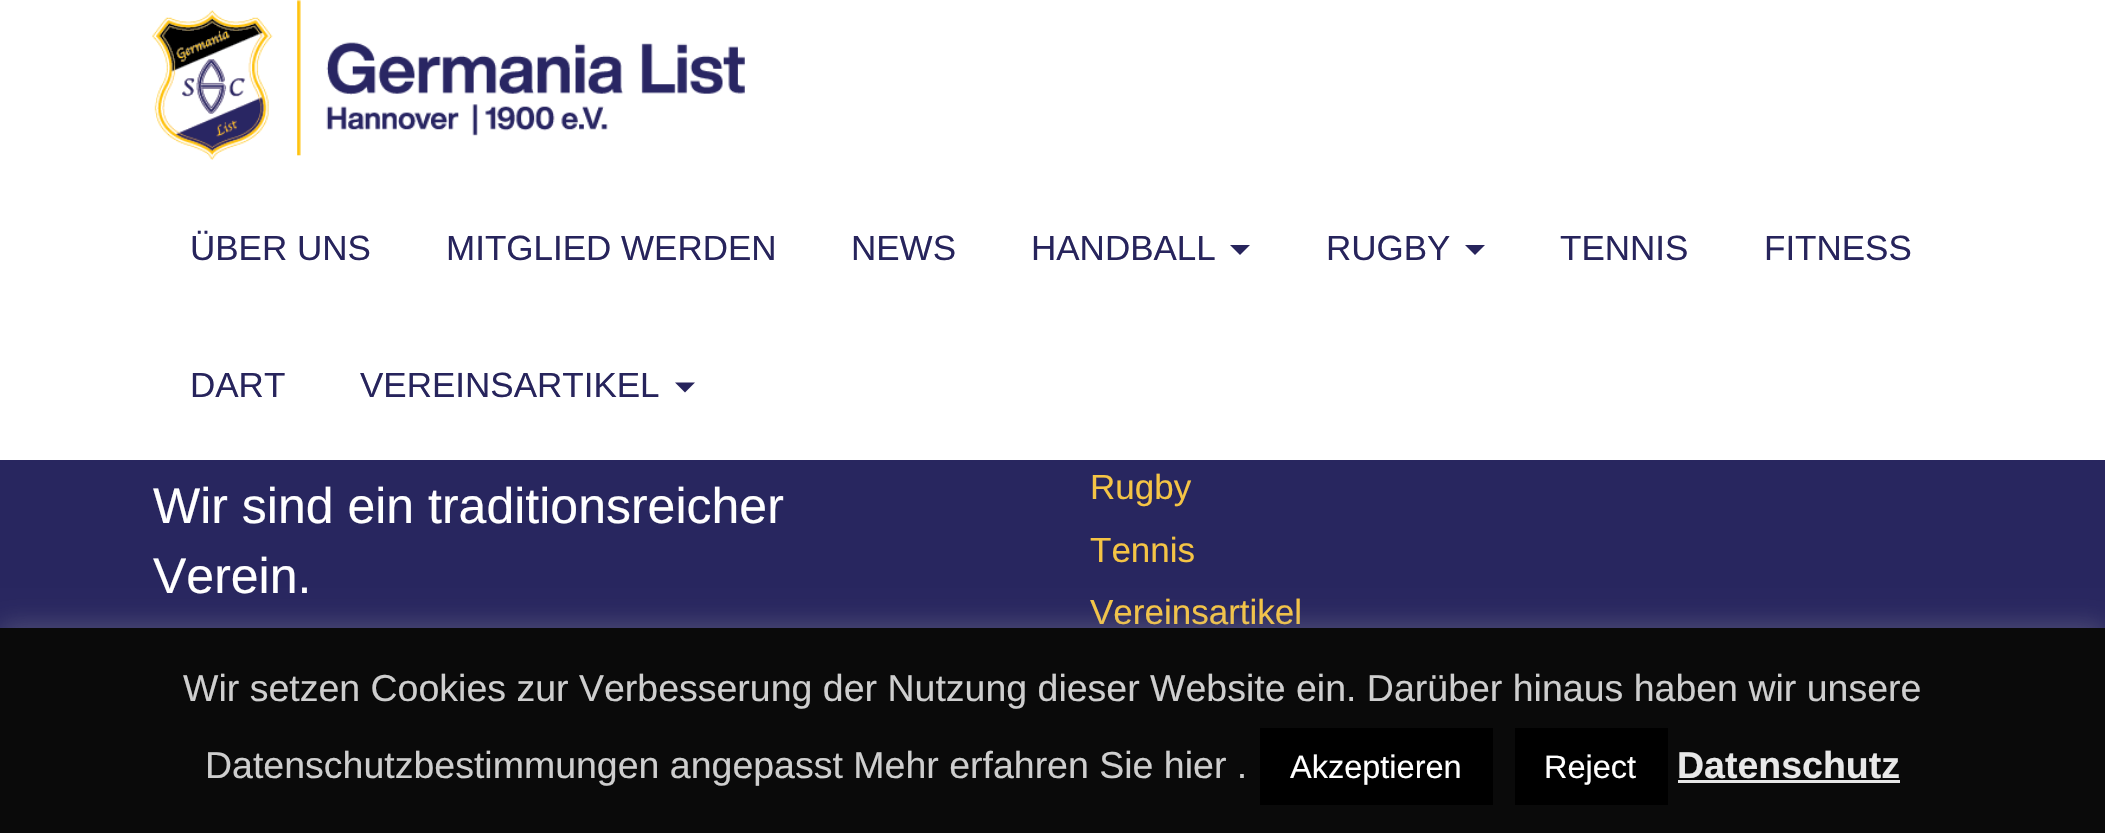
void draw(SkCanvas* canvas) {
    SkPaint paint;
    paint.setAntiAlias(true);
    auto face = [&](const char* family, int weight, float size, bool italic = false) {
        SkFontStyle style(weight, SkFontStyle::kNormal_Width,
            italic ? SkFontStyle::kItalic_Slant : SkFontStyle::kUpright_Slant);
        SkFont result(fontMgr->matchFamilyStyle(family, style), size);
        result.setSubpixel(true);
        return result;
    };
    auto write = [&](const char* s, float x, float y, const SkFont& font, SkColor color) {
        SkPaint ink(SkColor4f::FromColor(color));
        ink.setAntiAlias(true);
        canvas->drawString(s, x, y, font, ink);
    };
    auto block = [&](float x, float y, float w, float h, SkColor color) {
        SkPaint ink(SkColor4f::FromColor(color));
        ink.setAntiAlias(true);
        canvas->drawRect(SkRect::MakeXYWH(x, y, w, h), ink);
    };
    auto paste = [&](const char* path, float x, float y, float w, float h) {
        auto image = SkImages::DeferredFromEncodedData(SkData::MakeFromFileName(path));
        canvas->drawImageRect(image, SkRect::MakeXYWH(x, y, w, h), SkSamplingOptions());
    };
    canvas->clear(SkColorSetRGB(40, 38, 95));
    block(0, 0, 2105, 460, SK_ColorWHITE);
    paste("pic1.png", 152, 0, 593, 160);
    auto kFont1 = face("Liberation Sans", 400, 35);
    write("ÜBER UNS", 190, 260, kFont1, SkColorSetRGB(39, 36, 92));
    write("MITGLIED WERDEN", 446, 260, kFont1, SkColorSetRGB(39, 36, 92));
    write("NEWS", 851, 260, kFont1, SkColorSetRGB(39, 36, 92));
    write("HANDBALL", 1031, 260, kFont1, SkColorSetRGB(39, 36, 92));
    paint.setColor(SkColorSetRGB(39, 36, 92));
    canvas->drawPath(SkPathBuilder().moveTo(1230, 245).lineTo(1250, 245).lineTo(1240, 255).close().detach(), paint);
    write("RUGBY", 1326, 260, kFont1, SkColorSetRGB(39, 36, 92));
    canvas->drawPath(SkPathBuilder().moveTo(1465, 245).lineTo(1485, 245).lineTo(1475, 255).close().detach(), paint);
    write("TENNIS", 1560, 260, kFont1, SkColorSetRGB(39, 36, 92));
    write("FITNESS", 1764, 260, kFont1, SkColorSetRGB(39, 36, 92));
    write("DART", 190, 397, kFont1, SkColorSetRGB(39, 36, 92));
    write("VEREINSARTIKEL", 360, 397, kFont1, SkColorSetRGB(39, 36, 92));
    canvas->drawPath(SkPathBuilder().moveTo(675, 382.5f).lineTo(695, 382.5f).lineTo(685, 392.5f).close().detach(), paint);
    auto kFont2 = face("Liberation Sans", 400, 50);
    write("Wir sind ein traditionsreicher", 153, 523, kFont2, SK_ColorWHITE);
    write("Verein.", 153, 593, kFont2, SK_ColorWHITE);
    write("Rugby", 1090, 499, kFont1, SkColorSetRGB(245, 196, 69));
    write("Tennis", 1090, 562, kFont1, SkColorSetRGB(245, 196, 69));
    write("Vereinsartikel", 1090, 624, kFont1, SkColorSetRGB(245, 196, 69));
    paint.setColor(SkColorSetARGB(77, 172, 171, 171));
    paint.setMaskFilter(SkMaskFilter::MakeBlur(kNormal_SkBlurStyle, 12.5f));
    canvas->drawRect(SkRect::MakeXYWH(0, 625, 2105, 208), paint);
    paint.setMaskFilter(nullptr);
    block(0, 628, 2105, 205, SkColorSetRGB(10, 10, 10));
    auto kFont3 = face("Liberation Sans", 400, 37.5f);
    write("Wir setzen Cookies zur Verbesserung der Nutzung dieser Website ein. Darüber hinaus haben wir unsere", 183, 701, kFont3, SkColorSetRGB(206, 206, 206));
    write("Datenschutzbestimmungen angepasst Mehr erfahren Sie hier .", 205, 778, kFont3, SkColorSetRGB(206, 206, 206));
    block(1260, 728, 233, 77, SK_ColorBLACK);
    auto kFont4 = face("Liberation Sans", 400, 32.5f);
    write("Akzeptieren", 1290, 778, kFont4, SK_ColorWHITE);
    block(1515, 728, 153, 77, SK_ColorBLACK);
    write("Reject", 1544, 778, kFont4, SK_ColorWHITE);
    auto kFont5 = face("Liberation Sans", 700, 37.5f);
    write("Datenschutz", 1677, 778, kFont5, SkColorSetRGB(232, 232, 232));
    block(1678, 780, 222, 3, SkColorSetRGB(232, 232, 232));
}
